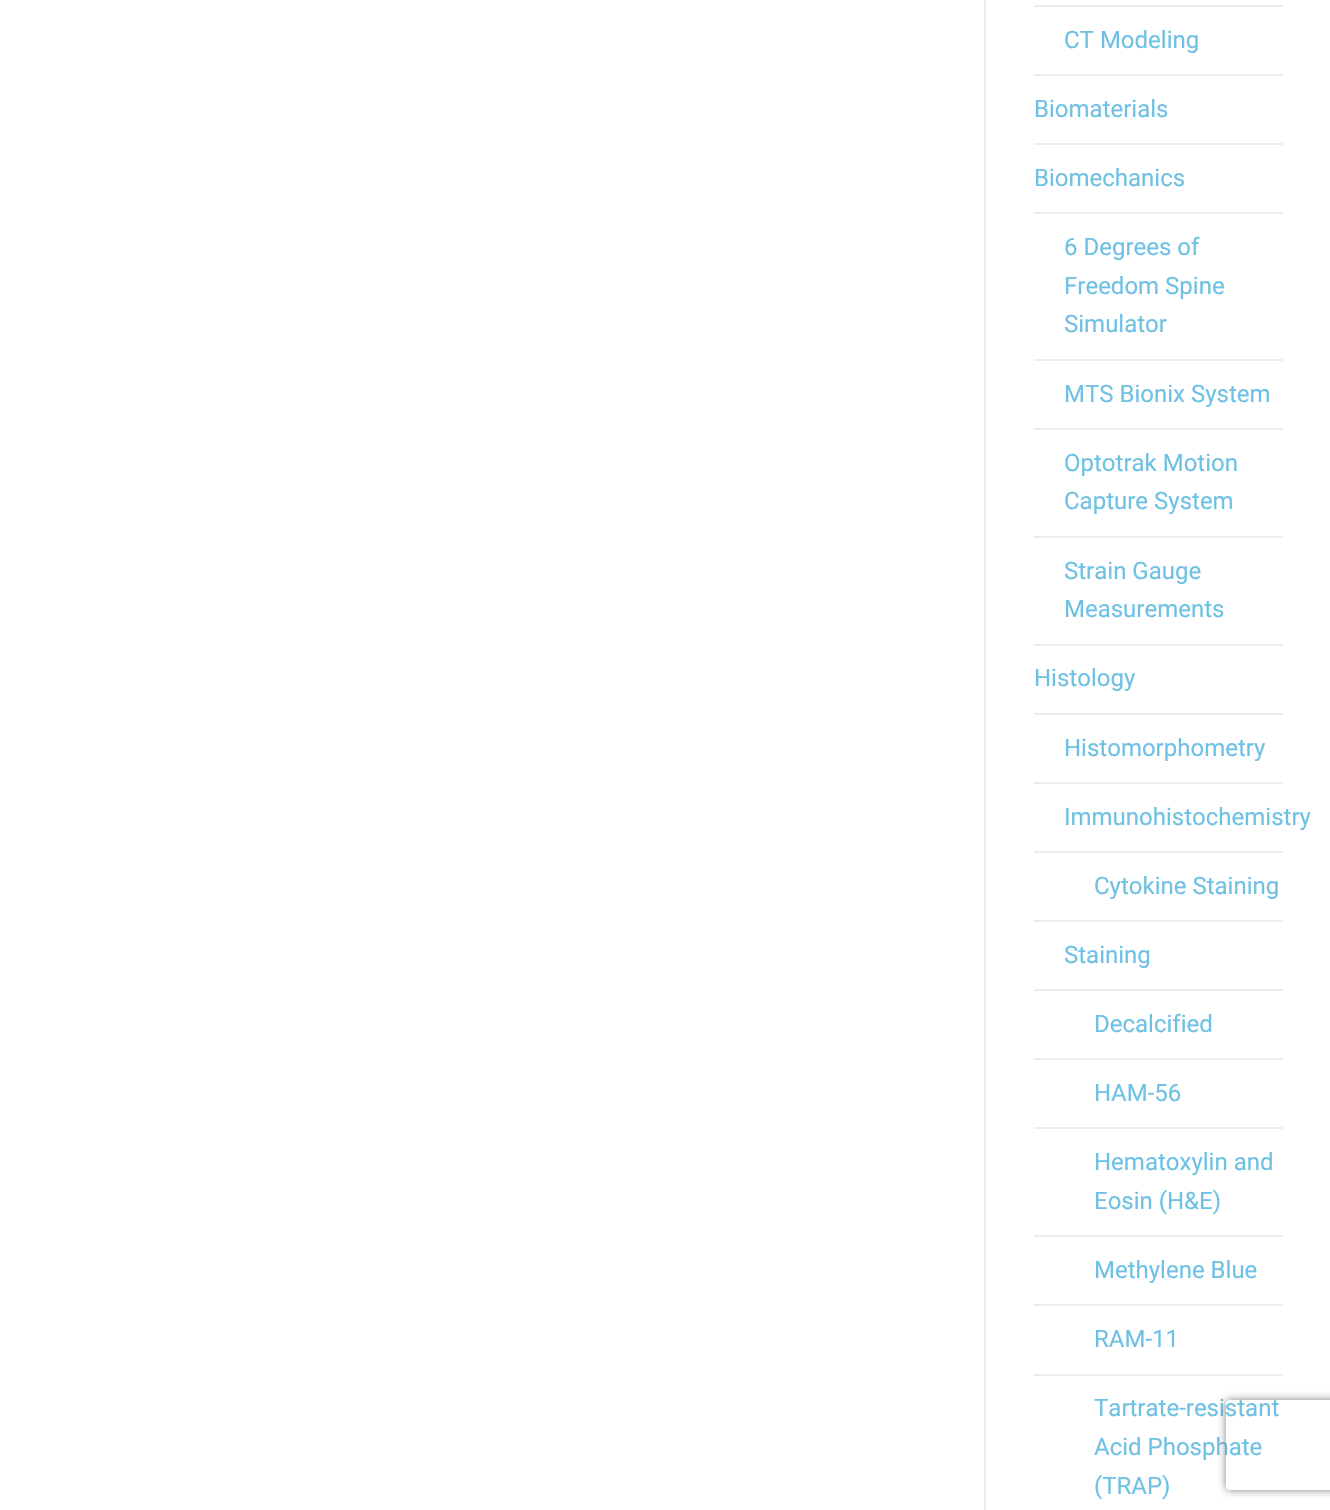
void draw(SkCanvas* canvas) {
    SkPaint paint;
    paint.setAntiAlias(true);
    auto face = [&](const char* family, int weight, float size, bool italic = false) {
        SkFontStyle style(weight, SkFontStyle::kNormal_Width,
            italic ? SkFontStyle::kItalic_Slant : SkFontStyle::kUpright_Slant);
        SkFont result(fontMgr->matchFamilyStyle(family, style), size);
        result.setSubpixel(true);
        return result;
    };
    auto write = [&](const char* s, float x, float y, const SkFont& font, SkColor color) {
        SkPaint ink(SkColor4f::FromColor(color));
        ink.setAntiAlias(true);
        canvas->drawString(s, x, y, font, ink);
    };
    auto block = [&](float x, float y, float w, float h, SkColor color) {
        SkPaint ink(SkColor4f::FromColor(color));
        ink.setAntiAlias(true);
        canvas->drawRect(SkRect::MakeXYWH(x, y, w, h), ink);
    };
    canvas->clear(SK_ColorWHITE);
    block(984, 0, 2, 1510, SkColorSetRGB(234, 236, 238));
    block(1034, 5, 249, 2, SkColorSetRGB(234, 236, 238));
    block(1034, 74, 249, 2, SkColorSetRGB(234, 236, 238));
    auto kFont1 = face("Roboto", 400, 24);
    write("CT Modeling", 1064, 48, kFont1, SkColorSetRGB(110, 193, 228));
    block(1034, 143, 249, 2, SkColorSetRGB(234, 236, 238));
    write("Biomaterials", 1034, 117, kFont1, SkColorSetRGB(110, 193, 228));
    block(1034, 212, 249, 2, SkColorSetRGB(234, 236, 238));
    write("Biomechanics", 1034, 186, kFont1, SkColorSetRGB(110, 193, 228));
    block(1034, 359, 249, 2, SkColorSetRGB(234, 236, 238));
    write("6 Degrees of", 1064, 255, kFont1, SkColorSetRGB(110, 193, 228));
    write("Freedom Spine", 1064, 294, kFont1, SkColorSetRGB(110, 193, 228));
    write("Simulator", 1064, 332, kFont1, SkColorSetRGB(110, 193, 228));
    block(1034, 428, 249, 2, SkColorSetRGB(234, 236, 238));
    write("MTS Bionix System", 1064, 402, kFont1, SkColorSetRGB(110, 193, 228));
    block(1034, 536, 249, 2, SkColorSetRGB(234, 236, 238));
    write("Optotrak Motion", 1064, 471, kFont1, SkColorSetRGB(110, 193, 228));
    write("Capture System", 1064, 509, kFont1, SkColorSetRGB(110, 193, 228));
    block(1034, 644, 249, 2, SkColorSetRGB(234, 236, 238));
    write("Strain Gauge", 1064, 579, kFont1, SkColorSetRGB(110, 193, 228));
    write("Measurements", 1064, 617, kFont1, SkColorSetRGB(110, 193, 228));
    block(1034, 713, 249, 2, SkColorSetRGB(234, 236, 238));
    write("Histology", 1034, 686, kFont1, SkColorSetRGB(110, 193, 228));
    block(1034, 782, 249, 2, SkColorSetRGB(234, 236, 238));
    write("Histomorphometry", 1064, 756, kFont1, SkColorSetRGB(110, 193, 228));
    block(1034, 851, 249, 2, SkColorSetRGB(234, 236, 238));
    write("Immunohistochemistry", 1064, 825, kFont1, SkColorSetRGB(110, 193, 228));
    block(1034, 920, 249, 2, SkColorSetRGB(234, 236, 238));
    write("Cytokine Staining", 1094, 894, kFont1, SkColorSetRGB(110, 193, 228));
    block(1034, 989, 249, 2, SkColorSetRGB(234, 236, 238));
    write("Staining", 1064, 963, kFont1, SkColorSetRGB(110, 193, 228));
    block(1034, 1058, 249, 2, SkColorSetRGB(234, 236, 238));
    write("Decalcified", 1094, 1032, kFont1, SkColorSetRGB(110, 193, 228));
    block(1034, 1127, 249, 2, SkColorSetRGB(234, 236, 238));
    write("HAM-56", 1094, 1101, kFont1, SkColorSetRGB(110, 193, 228));
    block(1034, 1235, 249, 2, SkColorSetRGB(234, 236, 238));
    write("Hematoxylin and", 1094, 1170, kFont1, SkColorSetRGB(110, 193, 228));
    write("Eosin (H&E)", 1094, 1209, kFont1, SkColorSetRGB(110, 193, 228));
    block(1034, 1304, 249, 2, SkColorSetRGB(234, 236, 238));
    write("Methylene Blue", 1094, 1278, kFont1, SkColorSetRGB(110, 193, 228));
    block(1034, 1374, 249, 2, SkColorSetRGB(234, 236, 238));
    write("RAM-11", 1094, 1347, kFont1, SkColorSetRGB(110, 193, 228));
    write("Tartrate-resistant", 1094, 1416, kFont1, SkColorSetRGB(110, 193, 228));
    write("Acid Phosphate", 1094, 1455, kFont1, SkColorSetRGB(110, 193, 228));
    write("(TRAP)", 1094, 1494, kFont1, SkColorSetRGB(110, 193, 228));
    canvas->save();
    canvas->clipPath(SkPathBuilder(SkPathFillType::kEvenOdd).moveTo(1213, 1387).lineTo(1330, 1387).lineTo(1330, 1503).lineTo(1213, 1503).close().moveTo(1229, 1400).lineTo(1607, 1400).cubicTo(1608.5f, 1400, 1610, 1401.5f, 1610, 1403).lineTo(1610, 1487).cubicTo(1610, 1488.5f, 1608.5f, 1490, 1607, 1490).lineTo(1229, 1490).cubicTo(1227.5f, 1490, 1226, 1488.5f, 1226, 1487).lineTo(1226, 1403).cubicTo(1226, 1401.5f, 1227.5f, 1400, 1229, 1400).close().detach(), true);
    paint.setColor(SkColorSetRGB(128, 128, 128));
    paint.setMaskFilter(SkMaskFilter::MakeBlur(kNormal_SkBlurStyle, 4));
    canvas->drawRoundRect(SkRect::MakeXYWH(1226, 1400, 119, 90), 3, 3, paint);
    paint.setMaskFilter(nullptr);
    canvas->restore();
}
